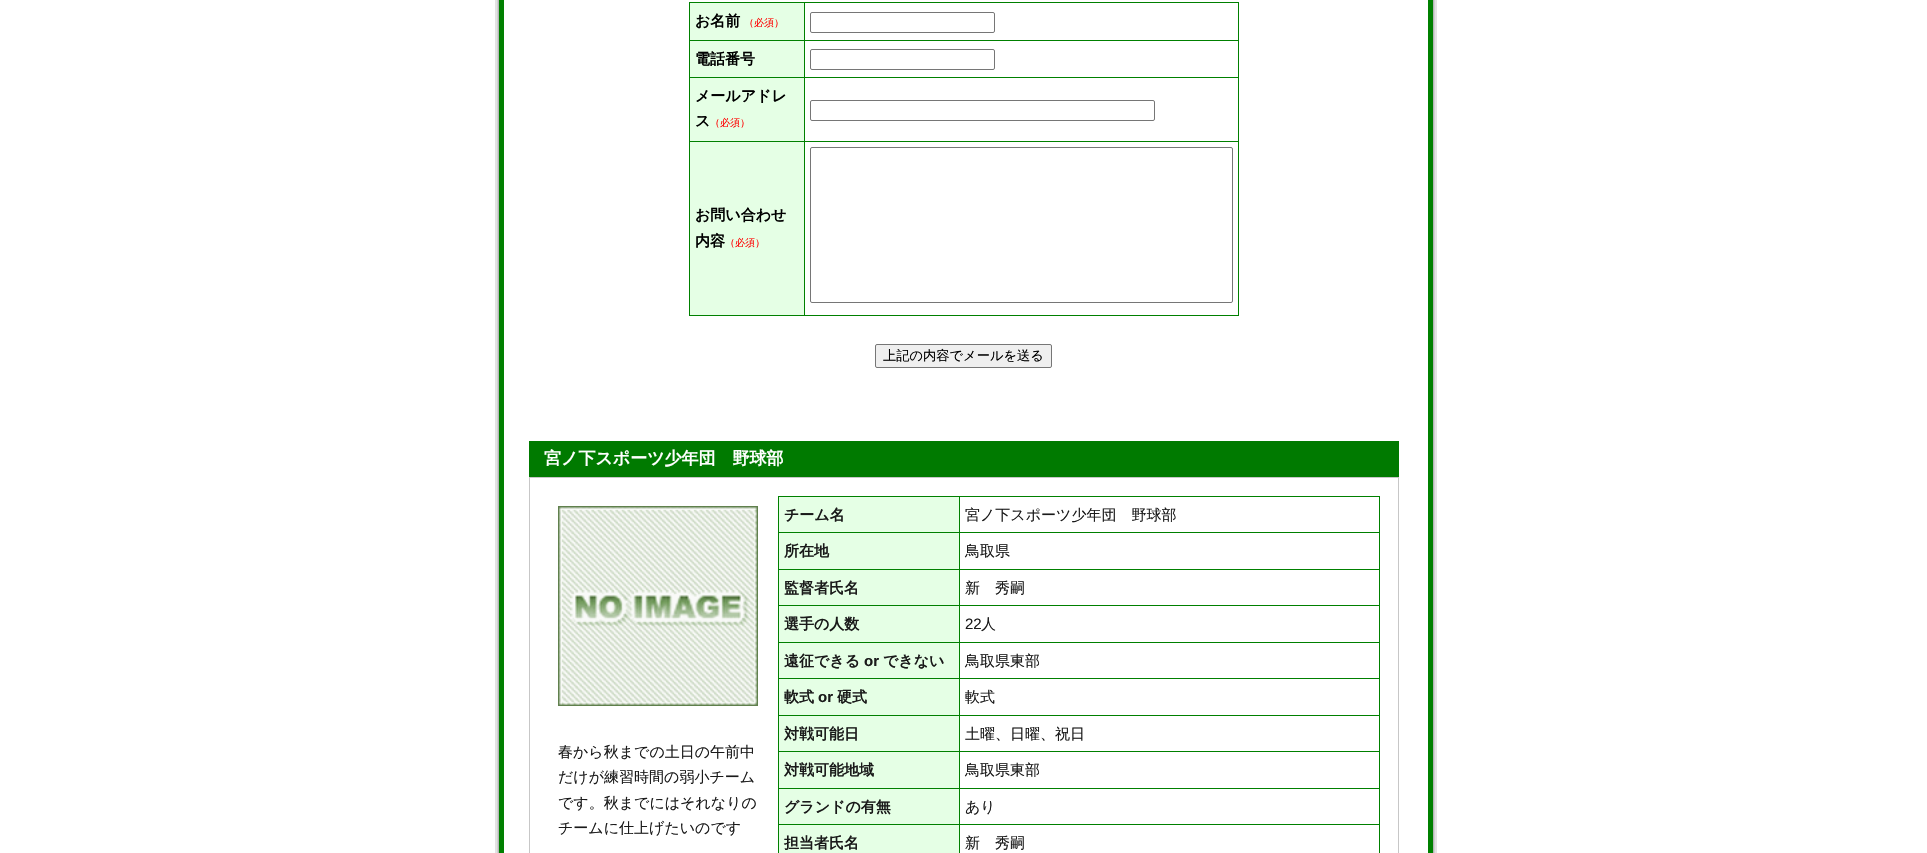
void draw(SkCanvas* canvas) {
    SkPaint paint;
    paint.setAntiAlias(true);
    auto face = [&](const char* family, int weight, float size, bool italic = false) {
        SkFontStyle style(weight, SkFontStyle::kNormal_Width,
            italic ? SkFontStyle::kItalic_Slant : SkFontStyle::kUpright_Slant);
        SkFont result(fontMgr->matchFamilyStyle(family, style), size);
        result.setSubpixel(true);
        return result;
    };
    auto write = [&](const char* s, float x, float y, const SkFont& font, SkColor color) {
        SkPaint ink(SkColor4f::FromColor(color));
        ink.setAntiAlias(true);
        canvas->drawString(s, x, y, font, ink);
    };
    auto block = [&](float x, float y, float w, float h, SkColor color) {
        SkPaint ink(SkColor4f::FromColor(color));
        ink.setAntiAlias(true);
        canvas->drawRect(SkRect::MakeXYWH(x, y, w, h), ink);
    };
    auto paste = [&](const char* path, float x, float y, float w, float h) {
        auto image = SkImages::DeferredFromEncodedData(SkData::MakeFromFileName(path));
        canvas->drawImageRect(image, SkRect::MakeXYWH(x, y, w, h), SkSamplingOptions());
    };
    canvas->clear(SK_ColorWHITE);
    paste("pic1.png", 495, 0, 942, 853);
    block(689, 2, 550, 314, SkColorSetRGB(0, 128, 0));
    block(690, 3, 114, 37, SkColorSetRGB(229, 255, 229));
    auto kFont1 = face("WenQuanYi Zen Hei", 700, 15);
    write("お名前", 695, 26, kFont1, SK_ColorBLACK);
    auto kFont2 = face("WenQuanYi Zen Hei", 500, 10);
    write("（必須）", 744, 26, kFont2, SkColorSetRGB(255, 0, 0));
    block(805, 3, 433, 37, SK_ColorWHITE);
    paint.setStyle(SkPaint::kStroke_Style);
    paint.setStrokeWidth(1);
    paint.setColor(SkColorSetRGB(118, 118, 118));
    canvas->drawRoundRect(SkRect::MakeXYWH(810.5f, 12.5f, 184, 20), 1.5f, 1.5f, paint);
    block(690, 41, 114, 36, SkColorSetRGB(229, 255, 229));
    write("電話番号", 695, 64, kFont1, SK_ColorBLACK);
    block(805, 41, 433, 36, SK_ColorWHITE);
    canvas->drawRoundRect(SkRect::MakeXYWH(810.5f, 49.5f, 184, 20), 1.5f, 1.5f, paint);
    block(690, 78, 114, 63, SkColorSetRGB(229, 255, 229));
    write("メールアドレ", 695, 101, kFont1, SK_ColorBLACK);
    write("ス", 695, 126, kFont1, SK_ColorBLACK);
    write("（必須）", 710, 126, kFont2, SkColorSetRGB(255, 0, 0));
    block(805, 78, 433, 63, SK_ColorWHITE);
    canvas->drawRoundRect(SkRect::MakeXYWH(810.5f, 100.5f, 344, 20), 1.5f, 1.5f, paint);
    block(690, 142, 114, 173, SkColorSetRGB(229, 255, 229));
    write("お問い合わせ", 695, 220, kFont1, SK_ColorBLACK);
    write("内容", 695, 246, kFont1, SK_ColorBLACK);
    write("（必須）", 725, 246, kFont2, SkColorSetRGB(255, 0, 0));
    block(805, 142, 433, 173, SK_ColorWHITE);
    canvas->drawRoundRect(SkRect::MakeXYWH(810.5f, 147.5f, 422, 155), 1.5f, 1.5f, paint);
    paint.setStyle(SkPaint::kFill_Style);
    paint.setColor(SkColorSetRGB(239, 239, 239));
    canvas->drawRoundRect(SkRect::MakeXYWH(875.5f, 344.5f, 176, 23), 1.5f, 1.5f, paint);
    paint.setStyle(SkPaint::kStroke_Style);
    paint.setColor(SkColorSetRGB(118, 118, 118));
    canvas->drawRoundRect(SkRect::MakeXYWH(875.5f, 344.5f, 176, 23), 1.5f, 1.5f, paint);
    auto kFont3 = face("WenQuanYi Zen Hei", 500, 13.25f);
    write("上記の内容でメールを送る", 883, 360, kFont3, SK_ColorBLACK);
    block(529, 441, 870, 36, SkColorSetRGB(0, 122, 0));
    auto kFont4 = face("WenQuanYi Zen Hei", 700, 17);
    write("宮ノ下スポーツ少年団　野球部", 544, 464, kFont4, SK_ColorWHITE);
    paint.setColor(SkColorSetRGB(199, 199, 199));
    canvas->drawRect(SkRect::MakeXYWH(529.5f, 477.5f, 869, 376), paint);
    paste("pic2.png", 558, 506, 200, 200);
    auto kFont5 = face("WenQuanYi Zen Hei", 500, 15);
    write("春から秋までの土日の午前中", 558, 757, kFont5, SkColorSetRGB(26, 26, 26));
    write("だけが練習時間の弱小チーム", 558, 782, kFont5, SkColorSetRGB(26, 26, 26));
    write("です。秋までにはそれなりの", 558, 808, kFont5, SkColorSetRGB(26, 26, 26));
    write("チームに仕上げたいのです", 558, 833, kFont5, SkColorSetRGB(26, 26, 26));
    block(778, 496, 602, 357, SkColorSetRGB(0, 128, 0));
    block(779, 497, 180, 35, SkColorSetRGB(229, 255, 229));
    write("チーム名", 784, 520, kFont1, SkColorSetRGB(26, 26, 26));
    block(960, 497, 419, 35, SK_ColorWHITE);
    write("宮ノ下スポーツ少年団　野球部", 965, 520, kFont5, SkColorSetRGB(26, 26, 26));
    block(779, 533, 180, 36, SkColorSetRGB(229, 255, 229));
    write("所在地", 784, 556, kFont1, SkColorSetRGB(26, 26, 26));
    block(960, 533, 419, 36, SK_ColorWHITE);
    write("鳥取県", 965, 556, kFont5, SkColorSetRGB(26, 26, 26));
    block(779, 570, 180, 35, SkColorSetRGB(229, 255, 229));
    write("監督者氏名", 784, 593, kFont1, SkColorSetRGB(26, 26, 26));
    block(960, 570, 419, 35, SK_ColorWHITE);
    write("新　秀嗣", 965, 593, kFont5, SkColorSetRGB(26, 26, 26));
    block(779, 606, 180, 36, SkColorSetRGB(229, 255, 229));
    write("選手の人数", 784, 629, kFont1, SkColorSetRGB(26, 26, 26));
    block(960, 606, 419, 36, SK_ColorWHITE);
    auto kFont6 = face("Liberation Sans", 400, 15);
    write("22", 965, 629, kFont6, SkColorSetRGB(26, 26, 26));
    write("人", 981, 629, kFont5, SkColorSetRGB(26, 26, 26));
    block(779, 643, 180, 35, SkColorSetRGB(229, 255, 229));
    write("遠征できる", 784, 666, kFont1, SkColorSetRGB(26, 26, 26));
    auto kFont7 = face("Liberation Sans", 700, 15);
    write("or", 864, 666, kFont7, SkColorSetRGB(26, 26, 26));
    write("できない", 883, 666, kFont1, SkColorSetRGB(26, 26, 26));
    block(960, 643, 419, 35, SK_ColorWHITE);
    write("鳥取県東部", 965, 666, kFont5, SkColorSetRGB(26, 26, 26));
    block(779, 679, 180, 36, SkColorSetRGB(229, 255, 229));
    write("軟式", 784, 702, kFont1, SkColorSetRGB(26, 26, 26));
    write("or", 818, 702, kFont7, SkColorSetRGB(26, 26, 26));
    write("硬式", 837, 702, kFont1, SkColorSetRGB(26, 26, 26));
    block(960, 679, 419, 36, SK_ColorWHITE);
    write("軟式", 965, 702, kFont5, SkColorSetRGB(26, 26, 26));
    block(779, 716, 180, 35, SkColorSetRGB(229, 255, 229));
    write("対戦可能日", 784, 739, kFont1, SkColorSetRGB(26, 26, 26));
    block(960, 716, 419, 35, SK_ColorWHITE);
    write("土曜、日曜、祝日", 965, 739, kFont5, SkColorSetRGB(26, 26, 26));
    block(779, 752, 180, 36, SkColorSetRGB(229, 255, 229));
    write("対戦可能地域", 784, 775, kFont1, SkColorSetRGB(26, 26, 26));
    block(960, 752, 419, 36, SK_ColorWHITE);
    write("鳥取県東部", 965, 775, kFont5, SkColorSetRGB(26, 26, 26));
    block(779, 789, 180, 35, SkColorSetRGB(229, 255, 229));
    write("グランドの有無", 784, 812, kFont1, SkColorSetRGB(26, 26, 26));
    block(960, 789, 419, 35, SK_ColorWHITE);
    write("あり", 965, 812, kFont5, SkColorSetRGB(26, 26, 26));
    block(779, 825, 180, 28, SkColorSetRGB(229, 255, 229));
    write("担当者氏名", 784, 848, kFont1, SkColorSetRGB(26, 26, 26));
    block(960, 825, 419, 28, SK_ColorWHITE);
    write("新　秀嗣", 965, 848, kFont5, SkColorSetRGB(26, 26, 26));
}
